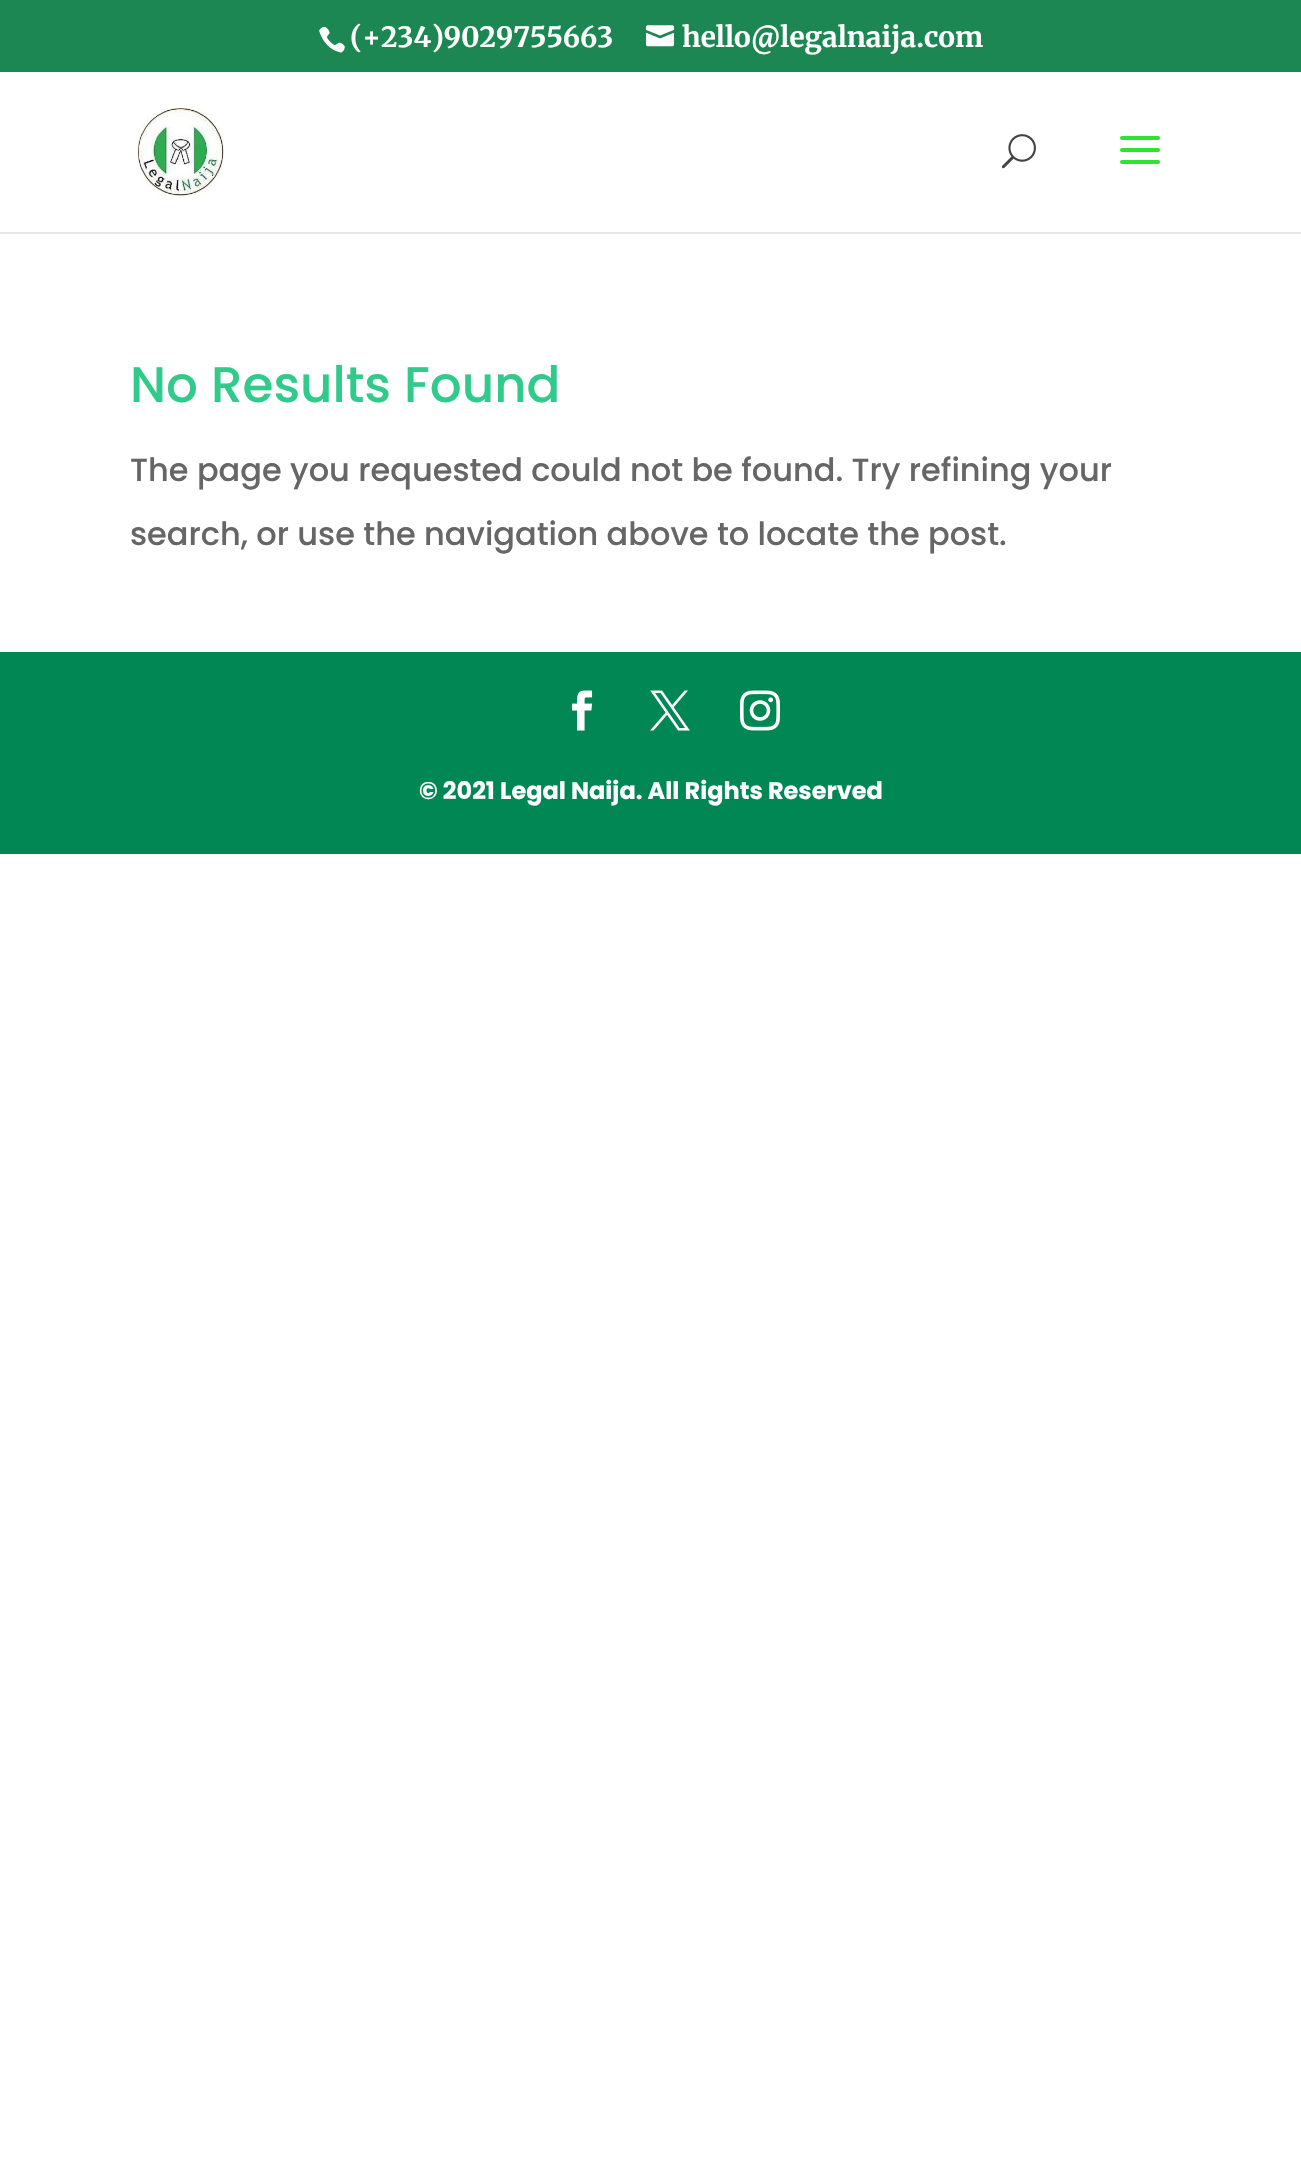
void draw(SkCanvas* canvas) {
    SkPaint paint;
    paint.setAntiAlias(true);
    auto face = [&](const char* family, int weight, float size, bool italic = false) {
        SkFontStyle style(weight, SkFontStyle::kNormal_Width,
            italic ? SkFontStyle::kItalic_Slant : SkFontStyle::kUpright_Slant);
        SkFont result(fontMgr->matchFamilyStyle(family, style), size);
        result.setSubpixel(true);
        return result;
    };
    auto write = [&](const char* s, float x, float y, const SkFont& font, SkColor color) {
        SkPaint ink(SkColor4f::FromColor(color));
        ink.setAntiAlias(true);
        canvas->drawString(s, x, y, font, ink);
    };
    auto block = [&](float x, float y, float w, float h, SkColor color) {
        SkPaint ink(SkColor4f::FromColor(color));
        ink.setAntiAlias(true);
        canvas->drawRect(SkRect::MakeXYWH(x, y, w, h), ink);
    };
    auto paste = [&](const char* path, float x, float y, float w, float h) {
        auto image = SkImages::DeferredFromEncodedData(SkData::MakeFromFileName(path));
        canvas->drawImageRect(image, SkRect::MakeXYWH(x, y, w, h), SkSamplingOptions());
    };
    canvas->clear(SK_ColorWHITE);
    block(0, 0, 1301, 72, SkColorSetRGB(29, 135, 83));
    paste("pic1.png", 319, 26, 26, 27);
    auto kFont1 = face("Merriweather", 700, 28);
    write("(+234)9029755663", 350, 47, kFont1, SK_ColorWHITE);
    paste("pic2.png", 646, 25, 28, 22);
    write("hello@legalnaija.com", 682, 47, kFont1, SK_ColorWHITE);
    block(0, 232, 1301, 2, SkColorSetRGB(230, 230, 230));
    paste("pic3.png", 138, 108, 86, 88);
    paste("pic4.png", 1001, 134, 35, 35);
    paste("pic5.png", 1120, 136, 40, 28);
    auto kFont2 = face("Poppins", 500, 50);
    write("No Results Found", 130, 402, kFont2, SkColorSetRGB(48, 203, 139));
    auto kFont3 = face("Poppins", 500, 32);
    write("The page you requested could not be found. Try refining your", 130, 481, kFont3, SkColorSetRGB(102, 102, 102));
    write("search, or use the navigation above to locate the post.", 130, 545, kFont3, SkColorSetRGB(102, 102, 102));
    block(0, 652, 1301, 202, SkColorSetRGB(0, 135, 83));
    paste("pic6.png", 572, 690, 21, 41);
    paste("pic7.png", 650, 690, 40, 41);
    paste("pic8.png", 740, 690, 40, 41);
    auto kFont4 = face("Poppins", 700, 24);
    write("© 2021 Legal Naija. All Rights Reserved", 419, 799, kFont4, SK_ColorWHITE);
}
